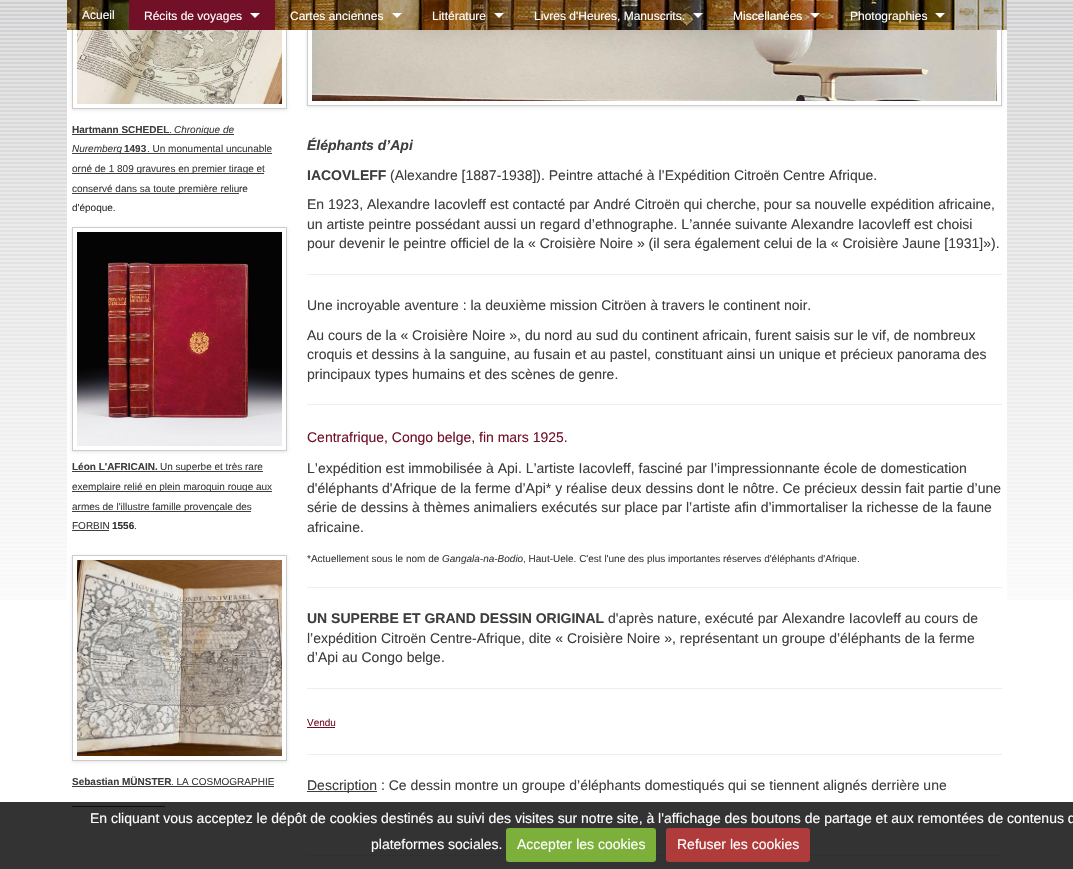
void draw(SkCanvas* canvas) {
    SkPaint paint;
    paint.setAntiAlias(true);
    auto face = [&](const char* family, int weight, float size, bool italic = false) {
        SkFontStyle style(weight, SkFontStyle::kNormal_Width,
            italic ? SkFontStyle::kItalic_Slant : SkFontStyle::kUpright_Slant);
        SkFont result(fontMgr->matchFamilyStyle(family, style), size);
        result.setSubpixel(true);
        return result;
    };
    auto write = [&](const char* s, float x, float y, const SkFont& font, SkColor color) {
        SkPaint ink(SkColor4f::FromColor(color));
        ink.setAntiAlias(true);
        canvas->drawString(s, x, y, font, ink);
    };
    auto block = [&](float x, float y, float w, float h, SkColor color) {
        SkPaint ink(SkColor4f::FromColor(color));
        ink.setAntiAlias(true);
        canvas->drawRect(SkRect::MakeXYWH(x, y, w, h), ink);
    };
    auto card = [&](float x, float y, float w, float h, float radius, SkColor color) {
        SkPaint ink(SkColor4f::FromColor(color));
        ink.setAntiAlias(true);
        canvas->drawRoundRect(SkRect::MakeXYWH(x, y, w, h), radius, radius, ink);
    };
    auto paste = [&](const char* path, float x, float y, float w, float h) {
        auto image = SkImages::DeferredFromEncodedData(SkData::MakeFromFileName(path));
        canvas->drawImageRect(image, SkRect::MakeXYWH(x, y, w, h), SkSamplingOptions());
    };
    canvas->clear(SK_ColorWHITE);
    paste("pic1.png", 0, 0, 1073, 600);
    block(67, 30, 940, 570, SK_ColorWHITE);
    canvas->save();
    canvas->clipPath(SkPathBuilder(SkPathFillType::kEvenOdd).moveTo(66, 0).lineTo(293, 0).lineTo(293, 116).lineTo(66, 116).close().moveTo(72, -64).lineTo(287, -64).lineTo(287, 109).lineTo(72, 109).close().detach(), true);
    paint.setColor(SkColorSetARGB(26, 0, 0, 0));
    paint.setMaskFilter(SkMaskFilter::MakeBlur(kNormal_SkBlurStyle, 1.5f));
    canvas->drawRect(SkRect::MakeXYWH(72, -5, 215, 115), paint);
    paint.setMaskFilter(nullptr);
    canvas->restore();
    paint.setStyle(SkPaint::kStroke_Style);
    paint.setStrokeWidth(1);
    paint.setColor(SkColorSetRGB(204, 204, 204));
    canvas->drawRect(SkRect::MakeXYWH(72.5f, -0.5f, 214, 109), paint);
    canvas->save();
    canvas->clipPath(SkPathBuilder(SkPathFillType::kEvenOdd).moveTo(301, 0).lineTo(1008, 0).lineTo(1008, 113).lineTo(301, 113).close().moveTo(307, -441).lineTo(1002, -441).lineTo(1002, 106).lineTo(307, 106).close().detach(), true);
    paint.setStyle(SkPaint::kFill_Style);
    paint.setColor(SkColorSetARGB(26, 0, 0, 0));
    paint.setMaskFilter(SkMaskFilter::MakeBlur(kNormal_SkBlurStyle, 1.5f));
    canvas->drawRect(SkRect::MakeXYWH(307, -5, 695, 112), paint);
    paint.setMaskFilter(nullptr);
    canvas->restore();
    paint.setStyle(SkPaint::kStroke_Style);
    paint.setColor(SkColorSetRGB(204, 204, 204));
    canvas->drawRect(SkRect::MakeXYWH(307.5f, -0.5f, 694, 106), paint);
    paste("pic2.png", 67, 0, 940, 30);
    auto kFont1 = face("Liberation Sans", 400, 12);
    write("Acueil", 82, 19, kFont1, SK_ColorWHITE);
    block(129, 0, 146, 30, SkColorSetRGB(113, 16, 39));
    write("Récits de voyages", 144, 20, kFont1, SK_ColorWHITE);
    paint.setStyle(SkPaint::kFill_Style);
    paint.setColor(SK_ColorWHITE);
    canvas->drawPath(SkPathBuilder().moveTo(250, 13).lineTo(260, 13).lineTo(255, 18).close().detach(), paint);
    write("Cartes anciennes", 290, 20, kFont1, SK_ColorWHITE);
    canvas->drawPath(SkPathBuilder().moveTo(392, 13).lineTo(402, 13).lineTo(397, 18).close().detach(), paint);
    write("Littérature", 432, 20, kFont1, SK_ColorWHITE);
    canvas->drawPath(SkPathBuilder().moveTo(494, 13).lineTo(504, 13).lineTo(499, 18).close().detach(), paint);
    write("Livres d'Heures, Manuscrits.", 534, 20, kFont1, SK_ColorWHITE);
    canvas->drawPath(SkPathBuilder().moveTo(693, 13).lineTo(703, 13).lineTo(698, 18).close().detach(), paint);
    write("Miscellanées", 733, 20, kFont1, SK_ColorWHITE);
    canvas->drawPath(SkPathBuilder().moveTo(810, 13).lineTo(820, 13).lineTo(815, 18).close().detach(), paint);
    write("Photographies", 850, 20, kFont1, SK_ColorWHITE);
    canvas->drawPath(SkPathBuilder().moveTo(935, 13).lineTo(945, 13).lineTo(940, 18).close().detach(), paint);
    paste("pic3.png", 77, 30, 205, 74);
    auto kFont2 = face("Liberation Sans", 700, 10);
    write("Hartmann SCHEDEL", 72, 133, kFont2, SkColorSetRGB(63, 62, 60));
    auto kFont3 = face("Liberation Sans", 400, 10);
    write(".", 169, 133, kFont3, SkColorSetRGB(63, 62, 60));
    block(72, 134, 162, 1, SkColorSetRGB(63, 62, 60));
    auto kFont4 = face("Liberation Sans", 400, 10, true);
    write("Chronique de", 174, 133, kFont4, SkColorSetRGB(63, 62, 60));
    block(72, 153, 200, 1, SkColorSetRGB(63, 62, 60));
    write("Nuremberg", 72, 152, kFont4, SkColorSetRGB(63, 62, 60));
    write("1493", 124, 152, kFont2, SkColorSetRGB(63, 62, 60));
    write(". Un monumental uncunable", 147, 152, kFont3, SkColorSetRGB(63, 62, 60));
    block(72, 173, 192, 1, SkColorSetRGB(63, 62, 60));
    write("orné de 1 809 gravures en premier tirage et", 72, 172, kFont3, SkColorSetRGB(63, 62, 60));
    block(72, 193, 167, 1, SkColorSetRGB(63, 62, 60));
    write("conservé dans sa toute première reliu", 72, 192, kFont3, SkColorSetRGB(63, 62, 60));
    write("re", 239, 192, kFont3, SkColorSetRGB(51, 51, 51));
    write("d'époque.", 72, 211, kFont3, SkColorSetRGB(51, 51, 51));
    canvas->save();
    canvas->clipPath(SkPathBuilder(SkPathFillType::kEvenOdd).moveTo(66, 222).lineTo(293, 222).lineTo(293, 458).lineTo(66, 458).close().moveTo(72, 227).lineTo(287, 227).lineTo(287, 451).lineTo(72, 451).close().detach(), true);
    paint.setColor(SkColorSetARGB(26, 0, 0, 0));
    paint.setMaskFilter(SkMaskFilter::MakeBlur(kNormal_SkBlurStyle, 1.5f));
    canvas->drawRect(SkRect::MakeXYWH(72, 228, 215, 224), paint);
    paint.setMaskFilter(nullptr);
    canvas->restore();
    paint.setStyle(SkPaint::kStroke_Style);
    paint.setColor(SkColorSetRGB(204, 204, 204));
    canvas->drawRect(SkRect::MakeXYWH(72.5f, 227.5f, 214, 223), paint);
    paste("pic4.png", 77, 232, 205, 214);
    write("Léon L'AFRICAIN.", 72, 470, kFont2, SkColorSetRGB(63, 62, 60));
    block(72, 471, 191, 1, SkColorSetRGB(63, 62, 60));
    write("Un superbe et très rare", 160, 470, kFont3, SkColorSetRGB(63, 62, 60));
    block(72, 491, 200, 1, SkColorSetRGB(63, 62, 60));
    write("exemplaire relié en plein maroquin rouge aux", 72, 490, kFont3, SkColorSetRGB(63, 62, 60));
    block(72, 511, 179, 1, SkColorSetRGB(63, 62, 60));
    write("armes de l'illustre famille provençale des", 72, 510, kFont3, SkColorSetRGB(63, 62, 60));
    write("FORBIN", 72, 529, kFont3, SkColorSetRGB(63, 62, 60));
    block(72, 530, 37, 1, SkColorSetRGB(63, 62, 60));
    write("1556", 112, 529, kFont2, SkColorSetRGB(51, 51, 51));
    write(".", 134, 529, kFont3, SkColorSetRGB(51, 51, 51));
    canvas->save();
    canvas->clipPath(SkPathBuilder(SkPathFillType::kEvenOdd).moveTo(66, 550).lineTo(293, 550).lineTo(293, 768).lineTo(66, 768).close().moveTo(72, 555).lineTo(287, 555).lineTo(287, 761).lineTo(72, 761).close().detach(), true);
    paint.setStyle(SkPaint::kFill_Style);
    paint.setColor(SkColorSetARGB(26, 0, 0, 0));
    paint.setMaskFilter(SkMaskFilter::MakeBlur(kNormal_SkBlurStyle, 1.5f));
    canvas->drawRect(SkRect::MakeXYWH(72, 556, 215, 206), paint);
    paint.setMaskFilter(nullptr);
    canvas->restore();
    paint.setStyle(SkPaint::kStroke_Style);
    paint.setColor(SkColorSetRGB(204, 204, 204));
    canvas->drawRect(SkRect::MakeXYWH(72.5f, 555.5f, 214, 205), paint);
    paste("pic5.png", 77, 560, 205, 196);
    write("Sebastian MÜNSTER", 72, 785, kFont2, SkColorSetRGB(63, 62, 60));
    block(72, 806, 93, 1, SkColorSetRGB(63, 62, 60));
    write(". LA COSMOGRAPHIE", 171, 785, kFont3, SkColorSetRGB(63, 62, 60));
    block(72, 786, 202, 1, SkColorSetRGB(63, 62, 60));
    paste("pic6.png", 312, 30, 685, 71);
    auto kFont5 = face("Liberation Sans", 700, 14, true);
    write("Éléphants d’Api", 307, 150, kFont5, SkColorSetRGB(63, 62, 60));
    auto kFont6 = face("Liberation Sans", 700, 14);
    write("IACOVLEFF", 307, 180, kFont6, SkColorSetRGB(63, 62, 60));
    auto kFont7 = face("Liberation Sans", 400, 14);
    write("(Alexandre [1887-1938]). Peintre attaché à l’Expédition Citroën Centre Afrique.", 390, 180, kFont7, SkColorSetRGB(63, 62, 60));
    write("En 1923, Alexandre Iacovleff est contacté par André Citroën qui cherche, pour sa nouvelle expédition africaine,", 307, 209, kFont7, SkColorSetRGB(63, 62, 60));
    write("un artiste peintre possédant aussi un regard d’ethnographe. L’année suivante Alexandre Iacovleff est choisi", 307, 229, kFont7, SkColorSetRGB(63, 62, 60));
    write("pour devenir le peintre officiel de la « Croisière Noire » (il sera également celui de la « Croisière Jaune [1931]»).", 307, 248, kFont7, SkColorSetRGB(63, 62, 60));
    block(307, 274, 695, 1, SkColorSetRGB(238, 238, 238));
    write("Une incroyable aventure : la deuxième mission Citröen à travers le continent noir.", 307, 310, kFont7, SkColorSetRGB(63, 62, 60));
    write("Au cours de la « Croisière Noire », du nord au sud du continent africain, furent saisis sur le vif, de nombreux", 307, 340, kFont7, SkColorSetRGB(63, 62, 60));
    write("croquis et dessins à la sanguine, au fusain et au pastel, constituant ainsi un unique et précieux panorama des", 307, 359, kFont7, SkColorSetRGB(63, 62, 60));
    write("principaux types humains et des scènes de genre.", 307, 379, kFont7, SkColorSetRGB(63, 62, 60));
    block(307, 404, 695, 1, SkColorSetRGB(238, 238, 238));
    write("Centrafrique, Congo belge, fin mars 1925.", 307, 442, kFont7, SkColorSetRGB(113, 16, 39));
    write("L’expédition est immobilisée à Api. L’artiste Iacovleff, fasciné par l’impressionnante école de domestication", 307, 473, kFont7, SkColorSetRGB(63, 62, 60));
    write("d'éléphants d'Afrique de la ferme d’Api* y réalise deux dessins dont le nôtre. Ce précieux dessin fait partie d’une", 307, 493, kFont7, SkColorSetRGB(63, 62, 60));
    write("série de dessins à thèmes animaliers exécutés sur place par l’artiste afin d’immortaliser la richesse de la faune", 307, 512, kFont7, SkColorSetRGB(63, 62, 60));
    write("africaine.", 307, 532, kFont7, SkColorSetRGB(63, 62, 60));
    write("*Actuellement sous le nom de", 307, 562, kFont3, SkColorSetRGB(63, 62, 60));
    write("Gangala-na-Bodio", 442, 562, kFont4, SkColorSetRGB(63, 62, 60));
    write(", Haut-Uele. C'est l'une des plus importantes réserves d'éléphants d'Afrique.", 523, 562, kFont3, SkColorSetRGB(63, 62, 60));
    block(307, 587, 695, 1, SkColorSetRGB(238, 238, 238));
    write("UN SUPERBE ET GRAND DESSIN ORIGINAL", 307, 623, kFont6, SkColorSetRGB(63, 62, 60));
    write("d'après nature, exécuté par Alexandre Iacovleff au cours de", 608, 623, kFont7, SkColorSetRGB(63, 62, 60));
    write("l’expédition Citroën Centre-Afrique, dite « Croisière Noire », représentant un groupe d’éléphants de la ferme", 307, 643, kFont7, SkColorSetRGB(63, 62, 60));
    write("d’Api au Congo belge.", 307, 662, kFont7, SkColorSetRGB(63, 62, 60));
    block(307, 688, 695, 1, SkColorSetRGB(238, 238, 238));
    write("Vendu", 307, 726, kFont3, SkColorSetRGB(113, 16, 39));
    block(307, 727, 28, 1, SkColorSetRGB(113, 16, 39));
    block(307, 754, 695, 1, SkColorSetRGB(238, 238, 238));
    block(307, 791, 70, 1, SkColorSetRGB(63, 62, 60));
    write("Description : Ce dessin montre un groupe d’éléphants domestiqués qui se tiennent alignés derrière une", 307, 790, kFont7, SkColorSetRGB(63, 62, 60));
    block(307, 855, 695, 1, SkColorSetRGB(238, 238, 238));
    block(0, 802, 1073, 67, SkColorSetARGB(204, 0, 0, 0));
    write("En cliquant vous acceptez le dépôt de cookies destinés au suivi des visites sur notre site, à l'affichage des boutons de partage et aux remontées de contenus d", 90, 823, kFont7, SK_ColorWHITE);
    write("plateformes sociales.", 371, 849, kFont7, SK_ColorWHITE);
    card(506, 828, 150, 34, 3, SkColorSetRGB(125, 175, 59));
    write("Accepter les cookies", 517, 849, kFont7, SK_ColorWHITE);
    card(666, 828, 144, 34, 3, SkColorSetRGB(175, 59, 59));
    write("Refuser les cookies", 677, 849, kFont7, SK_ColorWHITE);
}
